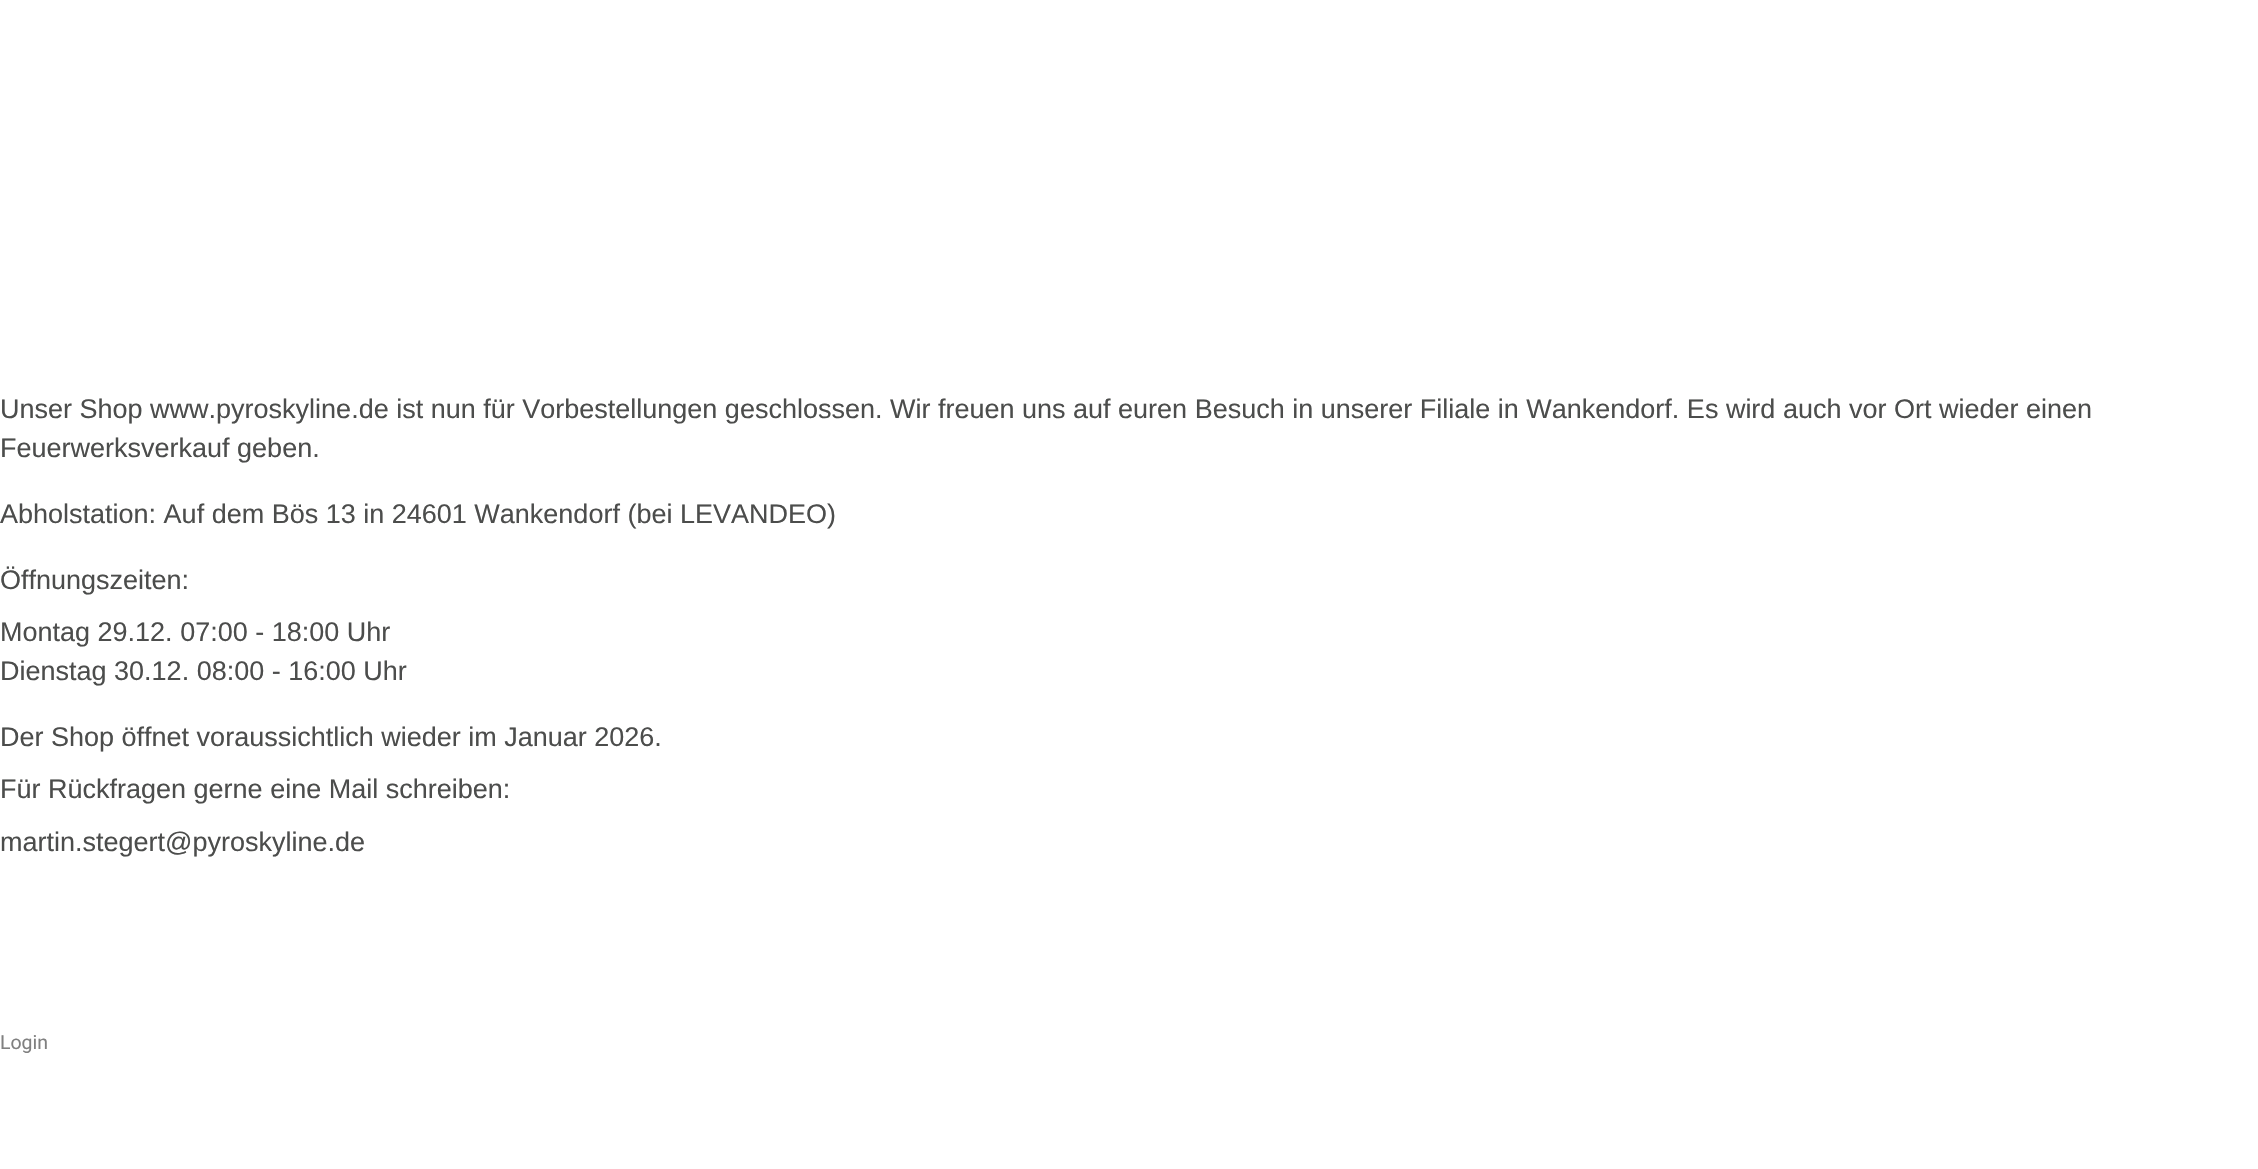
void draw(SkCanvas* canvas) {
    SkPaint paint;
    paint.setAntiAlias(true);
    auto face = [&](const char* family, int weight, float size, bool italic = false) {
        SkFontStyle style(weight, SkFontStyle::kNormal_Width,
            italic ? SkFontStyle::kItalic_Slant : SkFontStyle::kUpright_Slant);
        SkFont result(fontMgr->matchFamilyStyle(family, style), size);
        result.setSubpixel(true);
        return result;
    };
    auto write = [&](const char* s, float x, float y, const SkFont& font, SkColor color) {
        SkPaint ink(SkColor4f::FromColor(color));
        ink.setAntiAlias(true);
        canvas->drawString(s, x, y, font, ink);
    };
    canvas->clear(SK_ColorWHITE);
    auto kFont1 = face("Liberation Sans", 400, 27);
    write("Unser Shop www.pyroskyline.de ist nun für Vorbestellungen geschlossen. Wir freuen uns auf euren Besuch in unserer Filiale in Wankendorf. Es wird auch vor Ort wieder einen", 0, 418, kFont1, SkColorSetRGB(76, 77, 76));
    write("Feuerwerksverkauf geben.", 0, 457, kFont1, SkColorSetRGB(76, 77, 76));
    write("Abholstation: Auf dem Bös 13 in 24601 Wankendorf (bei LEVANDEO)", 0, 523, kFont1, SkColorSetRGB(76, 77, 76));
    write("Öffnungszeiten:", 0, 589, kFont1, SkColorSetRGB(76, 77, 76));
    write("Montag 29.12. 07:00 - 18:00 Uhr", 0, 641, kFont1, SkColorSetRGB(76, 77, 76));
    write("Dienstag 30.12. 08:00 - 16:00 Uhr", 0, 680, kFont1, SkColorSetRGB(76, 77, 76));
    write("Der Shop öffnet voraussichtlich wieder im Januar 2026.", 0, 746, kFont1, SkColorSetRGB(76, 77, 76));
    write("Für Rückfragen gerne eine Mail schreiben:", 0, 798, kFont1, SkColorSetRGB(76, 77, 76));
    write("martin.stegert@pyroskyline.de", 0, 851, kFont1, SkColorSetRGB(76, 77, 76));
    auto kFont2 = face("Roboto", 400, 19.5f);
    write("Login", 0, 1049, kFont2, SkColorSetRGB(128, 128, 128));
}
